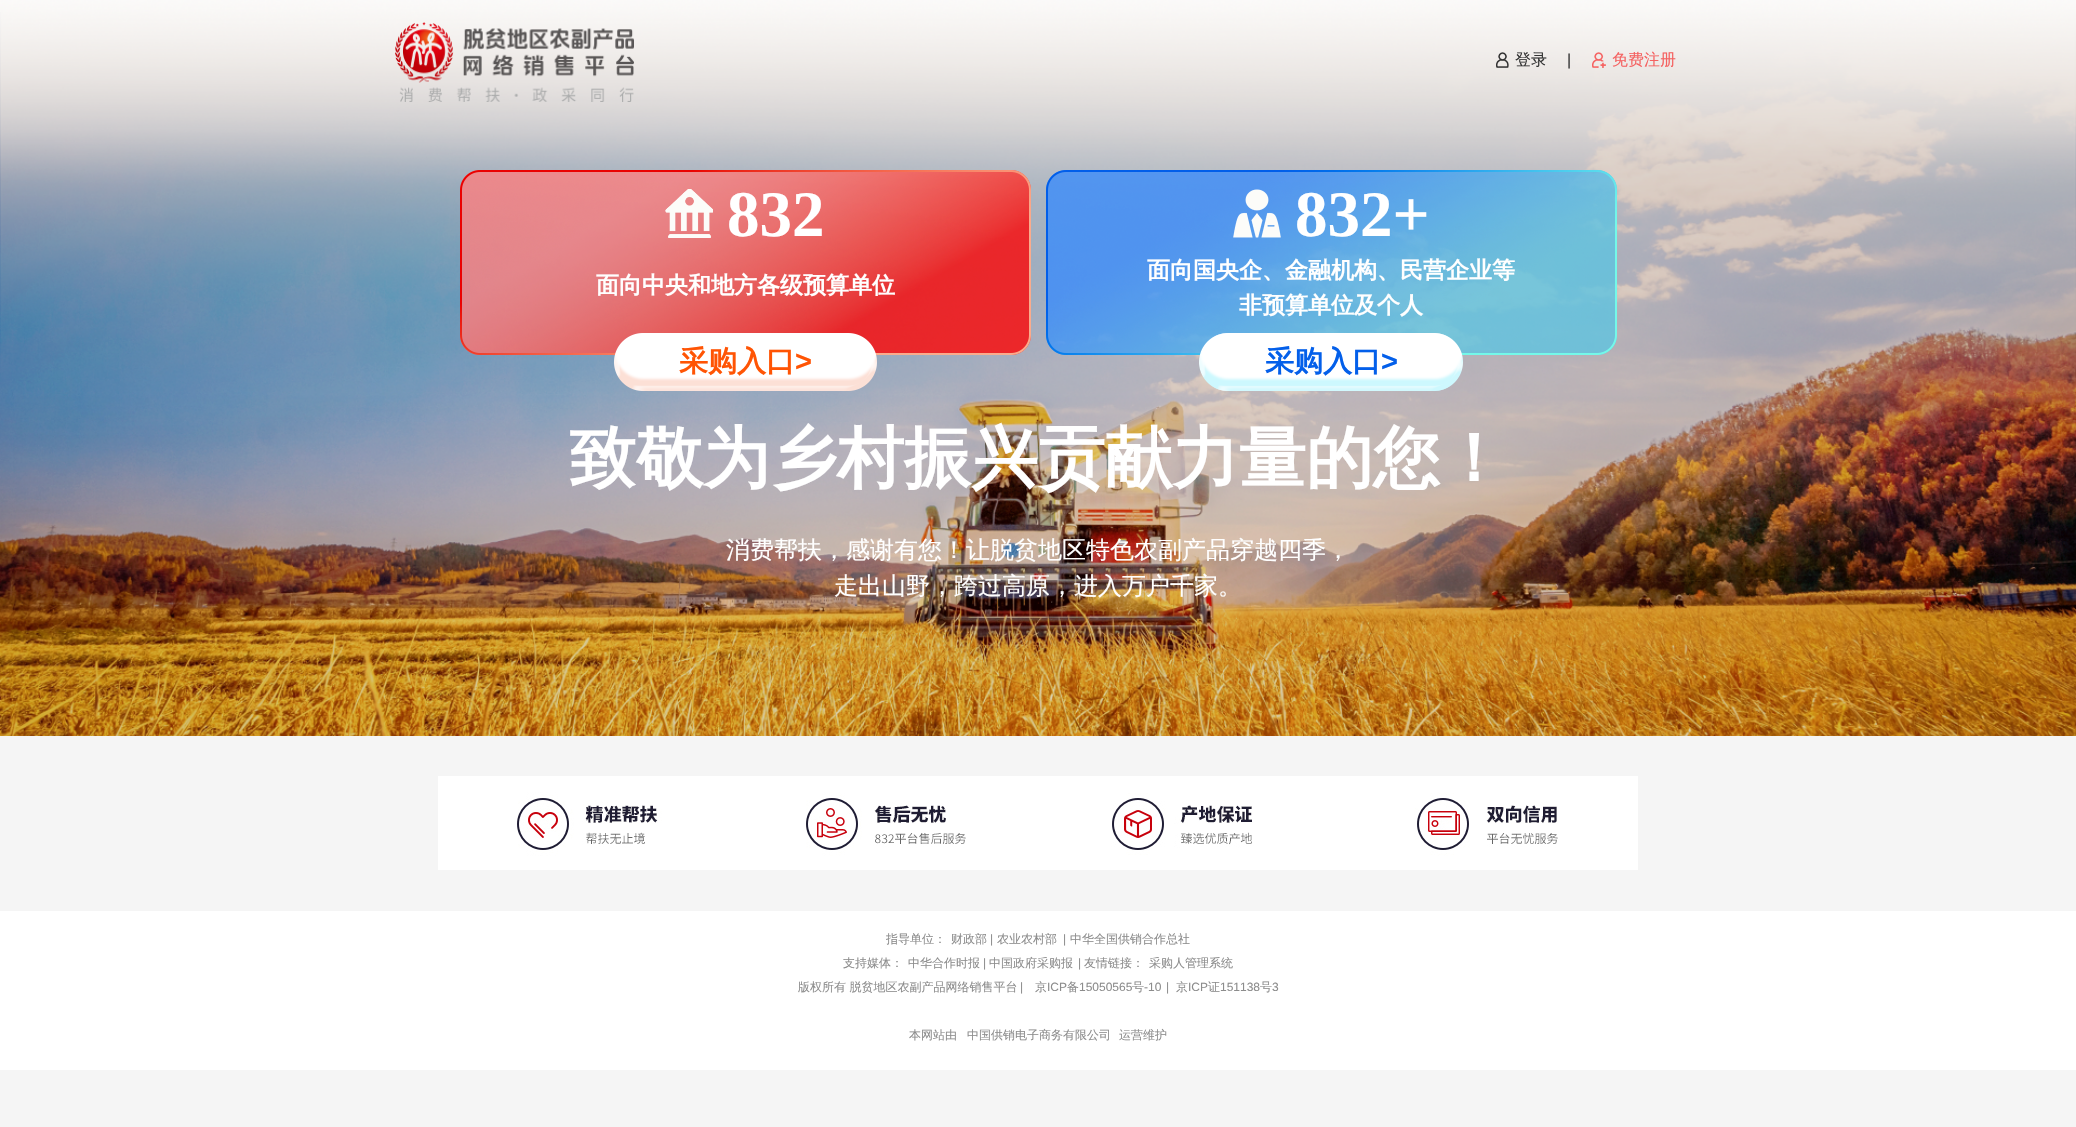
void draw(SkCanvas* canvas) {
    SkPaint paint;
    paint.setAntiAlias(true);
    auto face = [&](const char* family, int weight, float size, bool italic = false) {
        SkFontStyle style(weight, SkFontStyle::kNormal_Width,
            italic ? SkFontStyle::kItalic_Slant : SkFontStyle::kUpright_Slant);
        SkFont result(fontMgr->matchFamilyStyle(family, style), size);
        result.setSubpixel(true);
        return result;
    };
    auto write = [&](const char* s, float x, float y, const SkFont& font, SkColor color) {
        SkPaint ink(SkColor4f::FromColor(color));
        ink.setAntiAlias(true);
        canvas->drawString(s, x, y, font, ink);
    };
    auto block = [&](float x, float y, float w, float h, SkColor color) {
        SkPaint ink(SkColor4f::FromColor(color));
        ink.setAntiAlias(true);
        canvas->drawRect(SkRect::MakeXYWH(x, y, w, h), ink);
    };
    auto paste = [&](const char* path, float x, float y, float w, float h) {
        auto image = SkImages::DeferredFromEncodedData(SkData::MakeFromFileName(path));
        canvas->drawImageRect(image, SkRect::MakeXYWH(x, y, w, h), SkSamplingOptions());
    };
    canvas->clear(SkColorSetRGB(245, 245, 245));
    paste("pic1.png", 0, 0, 2076, 736);
    paste("pic2.png", 395, 22, 239, 80);
    paste("pic3.png", 1496, 52, 13, 16);
    auto kFont1 = face("WenQuanYi Zen Hei", 500, 16);
    write("登录", 1515, 65, kFont1, SkColorSetRGB(51, 51, 51));
    auto kFont2 = face("Liberation Sans", 400, 16);
    write("|", 1567, 65, kFont2, SkColorSetRGB(60, 60, 60));
    paste("pic4.png", 1592, 52, 14, 16);
    write("免费注册", 1612, 65, kFont1, SkColorSetRGB(245, 98, 97));
    paste("pic5.png", 460, 170, 571, 185);
    paste("pic6.png", 665, 189, 48, 49);
    auto kFont3 = face("Liberation Serif", 700, 65);
    write("832", 727, 236, kFont3, SK_ColorWHITE);
    auto kFont4 = face("WenQuanYi Zen Hei", 700, 23);
    write("面向中央和地方各级预算单位", 596, 293, kFont4, SK_ColorWHITE);
    paste("pic7.png", 614, 333, 263, 58);
    auto kFont5 = face("WenQuanYi Zen Hei", 700, 29);
    write("采购入口", 679, 371, kFont5, SkColorSetRGB(255, 84, 4));
    auto kFont6 = face("Liberation Sans", 700, 29);
    write(">", 795, 371, kFont6, SkColorSetRGB(255, 84, 4));
    paste("pic8.png", 1046, 170, 571, 185);
    paste("pic9.png", 1233, 189, 48, 49);
    write("832+", 1295, 236, kFont3, SK_ColorWHITE);
    write("面向国央企、金融机构、民营企业等", 1147, 278, kFont4, SK_ColorWHITE);
    write("非预算单位及个人", 1239, 313, kFont4, SK_ColorWHITE);
    paste("pic10.png", 1199, 333, 264, 58);
    write("采购入口", 1265, 371, kFont5, SkColorSetRGB(3, 95, 234));
    write(">", 1381, 371, kFont6, SkColorSetRGB(3, 95, 234));
    auto kFont7 = face("WenQuanYi Zen Hei", 700, 67);
    write("致敬为乡村振兴贡献力量的您！", 569, 481, kFont7, SK_ColorWHITE);
    auto kFont8 = face("WenQuanYi Zen Hei", 500, 24);
    write("消费帮扶，感谢有您！让脱贫地区特色农副产品穿越四季，", 726, 558, kFont8, SK_ColorWHITE);
    write("走出山野，跨过高原，进入万户千家。", 834, 594, kFont8, SK_ColorWHITE);
    paste("pic11.png", 438, 776, 1200, 94);
    block(0, 911, 2076, 159, SK_ColorWHITE);
    auto kFont9 = face("WenQuanYi Zen Hei", 500, 12);
    write("指导单位：", 886, 943, kFont9, SkColorSetRGB(140, 140, 140));
    write("财政部", 951, 943, kFont9, SkColorSetRGB(140, 140, 140));
    auto kFont10 = face("Liberation Sans", 400, 12);
    write("|", 990, 943, kFont10, SkColorSetRGB(140, 140, 140));
    write("农业农村部", 997, 943, kFont9, SkColorSetRGB(140, 140, 140));
    write("|", 1063, 943, kFont10, SkColorSetRGB(140, 140, 140));
    write("中华全国供销合作总社", 1070, 943, kFont9, SkColorSetRGB(140, 140, 140));
    write("支持媒体：", 843, 967, kFont9, SkColorSetRGB(140, 140, 140));
    write("中华合作时报", 908, 967, kFont9, SkColorSetRGB(140, 140, 140));
    write("|", 983, 967, kFont10, SkColorSetRGB(140, 140, 140));
    write("中国政府采购报", 989, 967, kFont9, SkColorSetRGB(140, 140, 140));
    write("|", 1078, 967, kFont10, SkColorSetRGB(140, 140, 140));
    write("友情链接：", 1084, 967, kFont9, SkColorSetRGB(140, 140, 140));
    write("采购人管理系统", 1149, 967, kFont9, SkColorSetRGB(140, 140, 140));
    write("版权所有 脱贫地区农副产品网络销售平台", 798, 991, kFont9, SkColorSetRGB(140, 140, 140));
    write("|", 1020, 991, kFont10, SkColorSetRGB(140, 140, 140));
    write("京", 1035, 991, kFont9, SkColorSetRGB(140, 140, 140));
    write("ICP", 1047, 991, kFont10, SkColorSetRGB(140, 140, 140));
    write("备", 1067, 991, kFont9, SkColorSetRGB(140, 140, 140));
    write("15050565", 1079, 991, kFont10, SkColorSetRGB(140, 140, 140));
    write("号", 1132, 991, kFont9, SkColorSetRGB(140, 140, 140));
    write("-10", 1144, 991, kFont10, SkColorSetRGB(140, 140, 140));
    write("|", 1166, 991, kFont10, SkColorSetRGB(140, 140, 140));
    write("京", 1176, 991, kFont9, SkColorSetRGB(140, 140, 140));
    write("ICP", 1188, 991, kFont10, SkColorSetRGB(140, 140, 140));
    write("证", 1208, 991, kFont9, SkColorSetRGB(140, 140, 140));
    write("151138", 1220, 991, kFont10, SkColorSetRGB(140, 140, 140));
    write("号", 1260, 991, kFont9, SkColorSetRGB(140, 140, 140));
    write("3", 1272, 991, kFont10, SkColorSetRGB(140, 140, 140));
    write("本网站由", 909, 1039, kFont9, SkColorSetRGB(140, 140, 140));
    write("中国供销电子商务有限公司", 967, 1039, kFont9, SkColorSetRGB(140, 140, 140));
    write("运营维护", 1119, 1039, kFont9, SkColorSetRGB(140, 140, 140));
}
